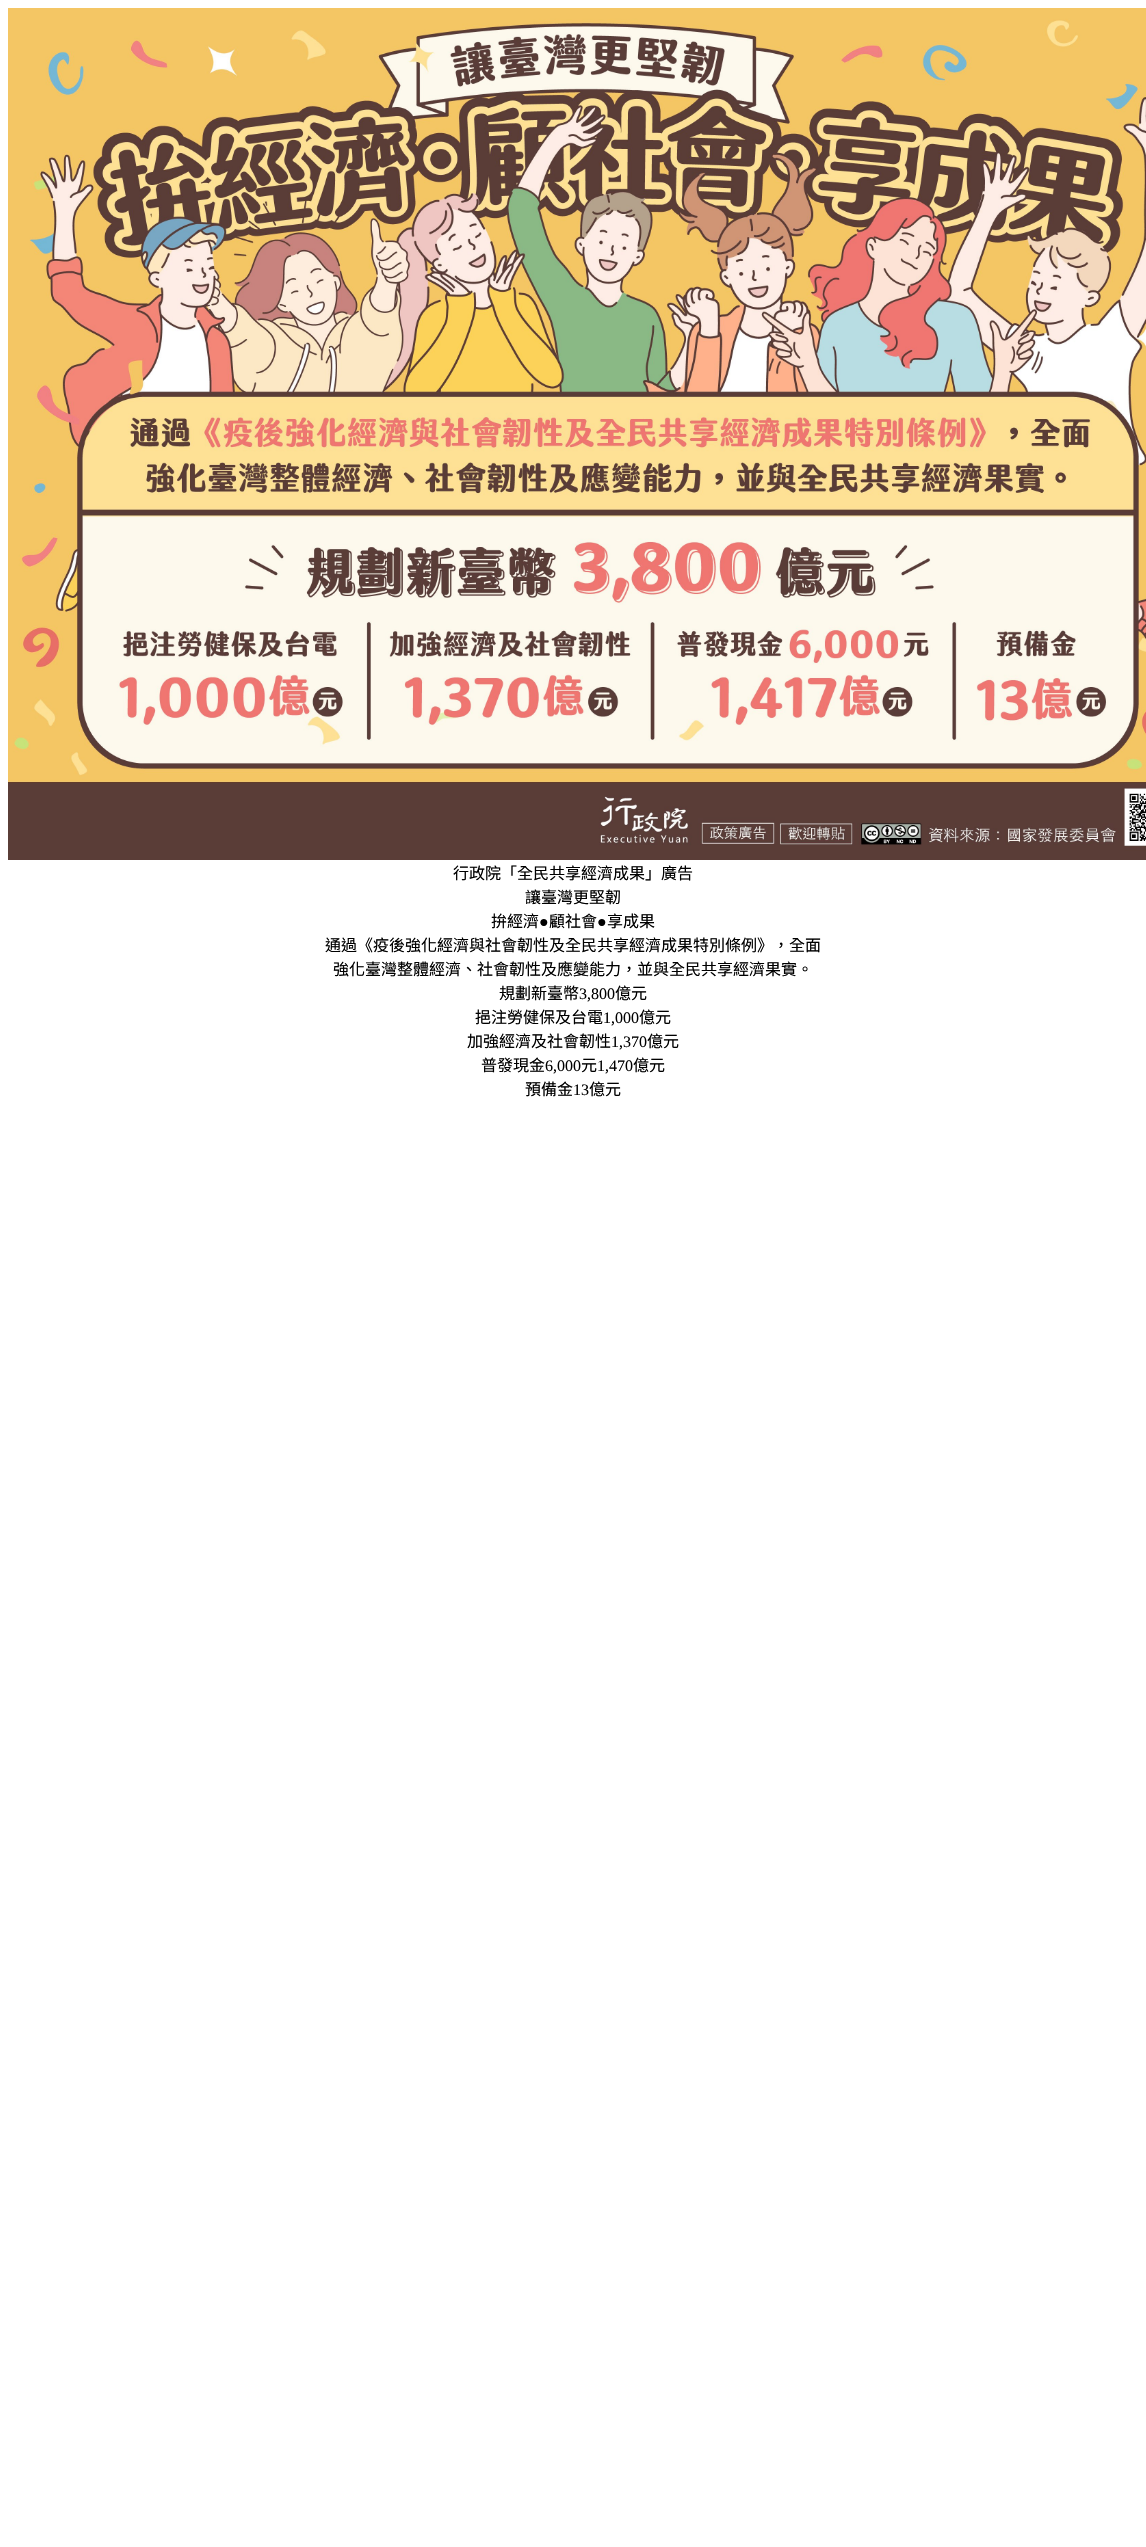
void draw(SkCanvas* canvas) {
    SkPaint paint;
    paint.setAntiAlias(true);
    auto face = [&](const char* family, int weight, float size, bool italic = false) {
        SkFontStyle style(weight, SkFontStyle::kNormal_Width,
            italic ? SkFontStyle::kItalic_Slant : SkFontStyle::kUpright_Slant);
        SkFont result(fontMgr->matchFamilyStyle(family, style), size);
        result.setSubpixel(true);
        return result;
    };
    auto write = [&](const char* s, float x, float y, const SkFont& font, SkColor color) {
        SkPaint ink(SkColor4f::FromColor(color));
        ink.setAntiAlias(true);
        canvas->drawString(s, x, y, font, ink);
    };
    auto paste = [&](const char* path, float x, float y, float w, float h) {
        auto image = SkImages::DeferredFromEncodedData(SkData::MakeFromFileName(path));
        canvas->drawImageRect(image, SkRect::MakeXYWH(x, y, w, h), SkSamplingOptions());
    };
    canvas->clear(SK_ColorWHITE);
    paste("pic1.png", 8, 8, 1138, 852);
    auto kFont1 = face("Noto Sans CJK TC", 400, 16);
    write("行政院「全民共享經濟成果」廣告", 453, 879, kFont1, SK_ColorBLACK);
    write("讓臺灣更堅韌", 525, 903, kFont1, SK_ColorBLACK);
    write("拚經濟", 491, 927, kFont1, SK_ColorBLACK);
    auto kFont2 = face("Liberation Serif", 400, 16);
    write("●", 539, 927, kFont2, SK_ColorBLACK);
    write("顧社會", 549, 927, kFont1, SK_ColorBLACK);
    write("●", 597, 927, kFont2, SK_ColorBLACK);
    write("享成果", 607, 927, kFont1, SK_ColorBLACK);
    write("通過《疫後強化經濟與社會韌性及全民共享經濟成果特別條例》，全面", 325, 951, kFont1, SK_ColorBLACK);
    write("強化臺灣整體經濟、社會韌性及應變能力，並與全民共享經濟果實。", 333, 975, kFont1, SK_ColorBLACK);
    write("規劃新臺幣", 499, 999, kFont1, SK_ColorBLACK);
    write("3,800", 579, 999, kFont2, SK_ColorBLACK);
    write("億元", 615, 999, kFont1, SK_ColorBLACK);
    write("挹注勞健保及台電", 475, 1023, kFont1, SK_ColorBLACK);
    write("1,000", 603, 1023, kFont2, SK_ColorBLACK);
    write("億元", 639, 1023, kFont1, SK_ColorBLACK);
    write("加強經濟及社會韌性", 467, 1047, kFont1, SK_ColorBLACK);
    write("1,370", 611, 1047, kFont2, SK_ColorBLACK);
    write("億元", 647, 1047, kFont1, SK_ColorBLACK);
    write("普發現金", 481, 1071, kFont1, SK_ColorBLACK);
    write("6,000", 545, 1071, kFont2, SK_ColorBLACK);
    write("元", 581, 1071, kFont1, SK_ColorBLACK);
    write("1,470", 597, 1071, kFont2, SK_ColorBLACK);
    write("億元", 633, 1071, kFont1, SK_ColorBLACK);
    write("預備金", 525, 1095, kFont1, SK_ColorBLACK);
    write("13", 573, 1095, kFont2, SK_ColorBLACK);
    write("億元", 589, 1095, kFont1, SK_ColorBLACK);
}
